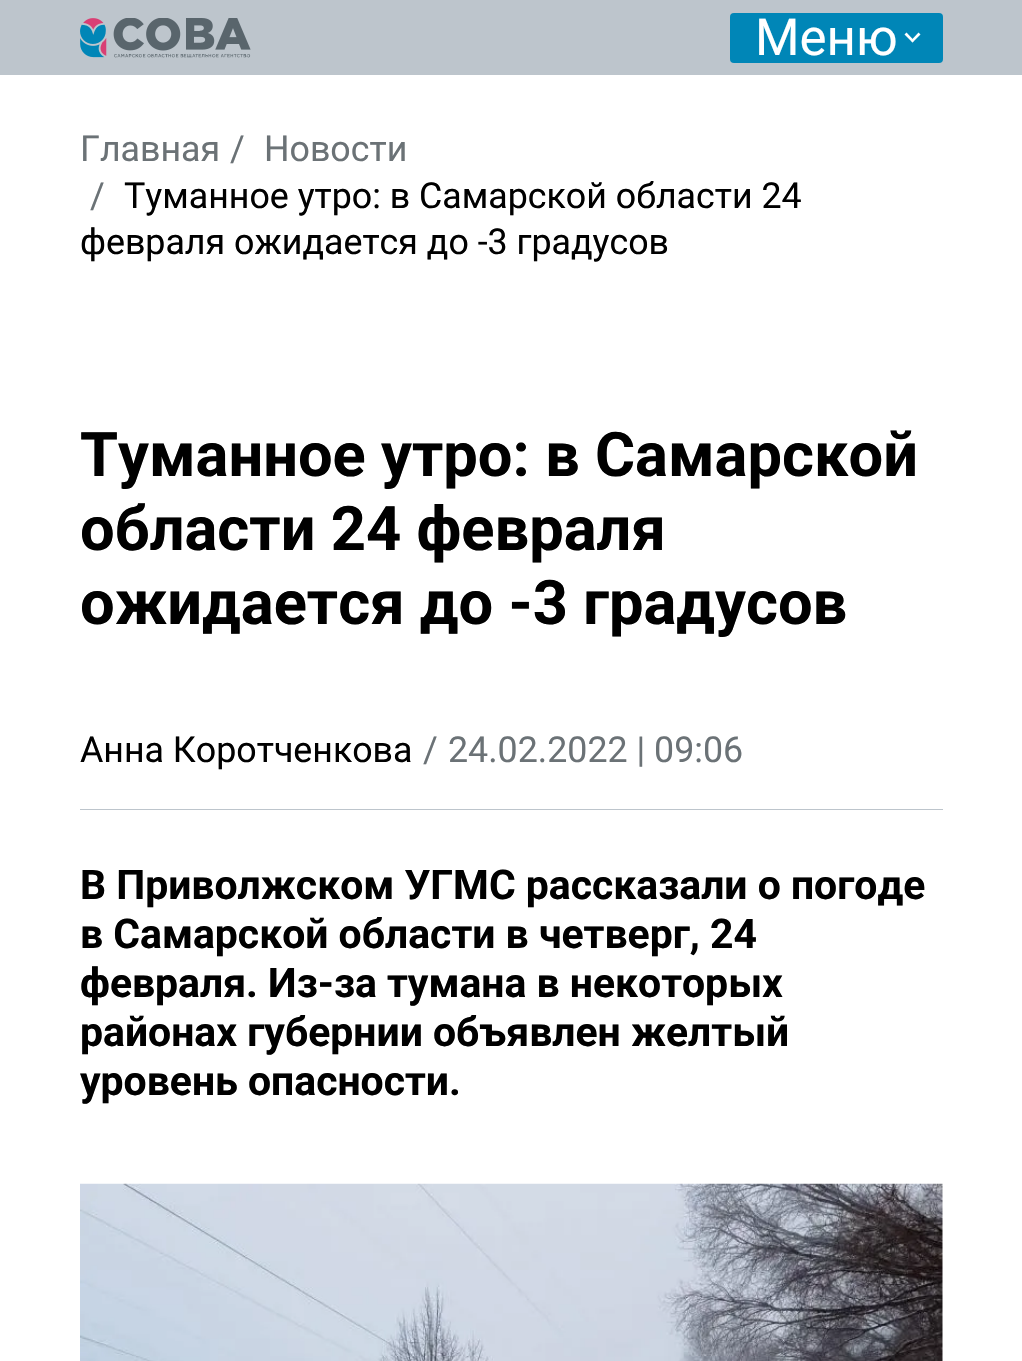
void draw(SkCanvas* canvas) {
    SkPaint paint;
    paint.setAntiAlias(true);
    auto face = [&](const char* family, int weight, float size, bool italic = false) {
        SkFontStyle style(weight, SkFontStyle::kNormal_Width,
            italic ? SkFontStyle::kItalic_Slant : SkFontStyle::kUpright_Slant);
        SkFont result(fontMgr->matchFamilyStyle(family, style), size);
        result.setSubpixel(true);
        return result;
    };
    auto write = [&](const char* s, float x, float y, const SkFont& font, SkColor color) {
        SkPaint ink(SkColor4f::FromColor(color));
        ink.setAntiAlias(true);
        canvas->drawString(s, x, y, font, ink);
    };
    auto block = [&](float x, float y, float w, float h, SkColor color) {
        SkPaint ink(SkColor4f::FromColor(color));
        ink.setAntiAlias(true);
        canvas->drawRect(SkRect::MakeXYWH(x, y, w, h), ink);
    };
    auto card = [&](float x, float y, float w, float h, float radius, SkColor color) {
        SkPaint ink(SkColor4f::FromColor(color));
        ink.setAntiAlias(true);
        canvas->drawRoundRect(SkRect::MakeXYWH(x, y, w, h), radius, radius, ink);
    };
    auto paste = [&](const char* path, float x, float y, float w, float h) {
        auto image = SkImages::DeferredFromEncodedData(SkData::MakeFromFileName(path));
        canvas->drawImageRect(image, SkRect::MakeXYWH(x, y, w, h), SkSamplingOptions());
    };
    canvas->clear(SK_ColorWHITE);
    block(0, 0, 1022, 75, SkColorSetRGB(189, 197, 204));
    paste("pic1.png", 80, 18, 171, 40);
    card(730, 13, 213, 50, 4, SkColorSetRGB(0, 134, 183));
    auto kFont1 = face("Roboto", 400, 51);
    write("Меню", 755, 55, kFont1, SK_ColorWHITE);
    paint.setColor(SK_ColorWHITE);
    canvas->drawPath(SkPathBuilder().moveTo(906.5f, 32.5f).lineTo(914, 40.5f).lineTo(912.5f, 42.5f).lineTo(904.5f, 34.5f).close().detach(), paint);
    canvas->drawPath(SkPathBuilder().moveTo(911, 40.5f).lineTo(918.5f, 32.5f).lineTo(920.5f, 34.5f).lineTo(912.5f, 42.5f).close().detach(), paint);
    auto kFont2 = face("Roboto", 400, 35.75f);
    write("Главная", 80, 161, kFont2, SkColorSetRGB(107, 114, 118));
    write("/", 230, 161, kFont2, SkColorSetRGB(107, 114, 118));
    write("Новости", 264, 161, kFont2, SkColorSetRGB(107, 114, 118));
    write("/", 90, 208, kFont2, SkColorSetRGB(107, 114, 118));
    write("Туманное утро: в Самарской области 24", 124, 208, kFont2, SK_ColorBLACK);
    write("февраля ожидается до -3 градусов", 80, 254, kFont2, SK_ColorBLACK);
    auto kFont3 = face("Roboto", 700, 61.4f);
    write("Туманное утро: в Самарской", 80, 476, kFont3, SK_ColorBLACK);
    write("области 24 февраля", 80, 550, kFont3, SK_ColorBLACK);
    write("ожидается до -3 градусов", 80, 624, kFont3, SK_ColorBLACK);
    block(80, 809, 863, 1, SkColorSetRGB(189, 197, 204));
    write("Анна Коротченкова", 80, 762, kFont2, SK_ColorBLACK);
    write("/", 423, 762, kFont2, SkColorSetRGB(107, 114, 118));
    write("24.02.2022 | 09:06", 448, 762, kFont2, SkColorSetRGB(107, 114, 118));
    auto kFont4 = face("Roboto", 700, 40.9f);
    write("В Приволжском УГМС рассказали о погоде", 80, 899, kFont4, SK_ColorBLACK);
    write("в Самарской области в четверг, 24", 80, 948, kFont4, SK_ColorBLACK);
    write("февраля. Из-за тумана в некоторых", 80, 997, kFont4, SK_ColorBLACK);
    write("районах губернии объявлен желтый", 80, 1046, kFont4, SK_ColorBLACK);
    write("уровень опасности.", 80, 1095, kFont4, SK_ColorBLACK);
    paste("pic2.png", 80, 1183, 863, 178);
}
